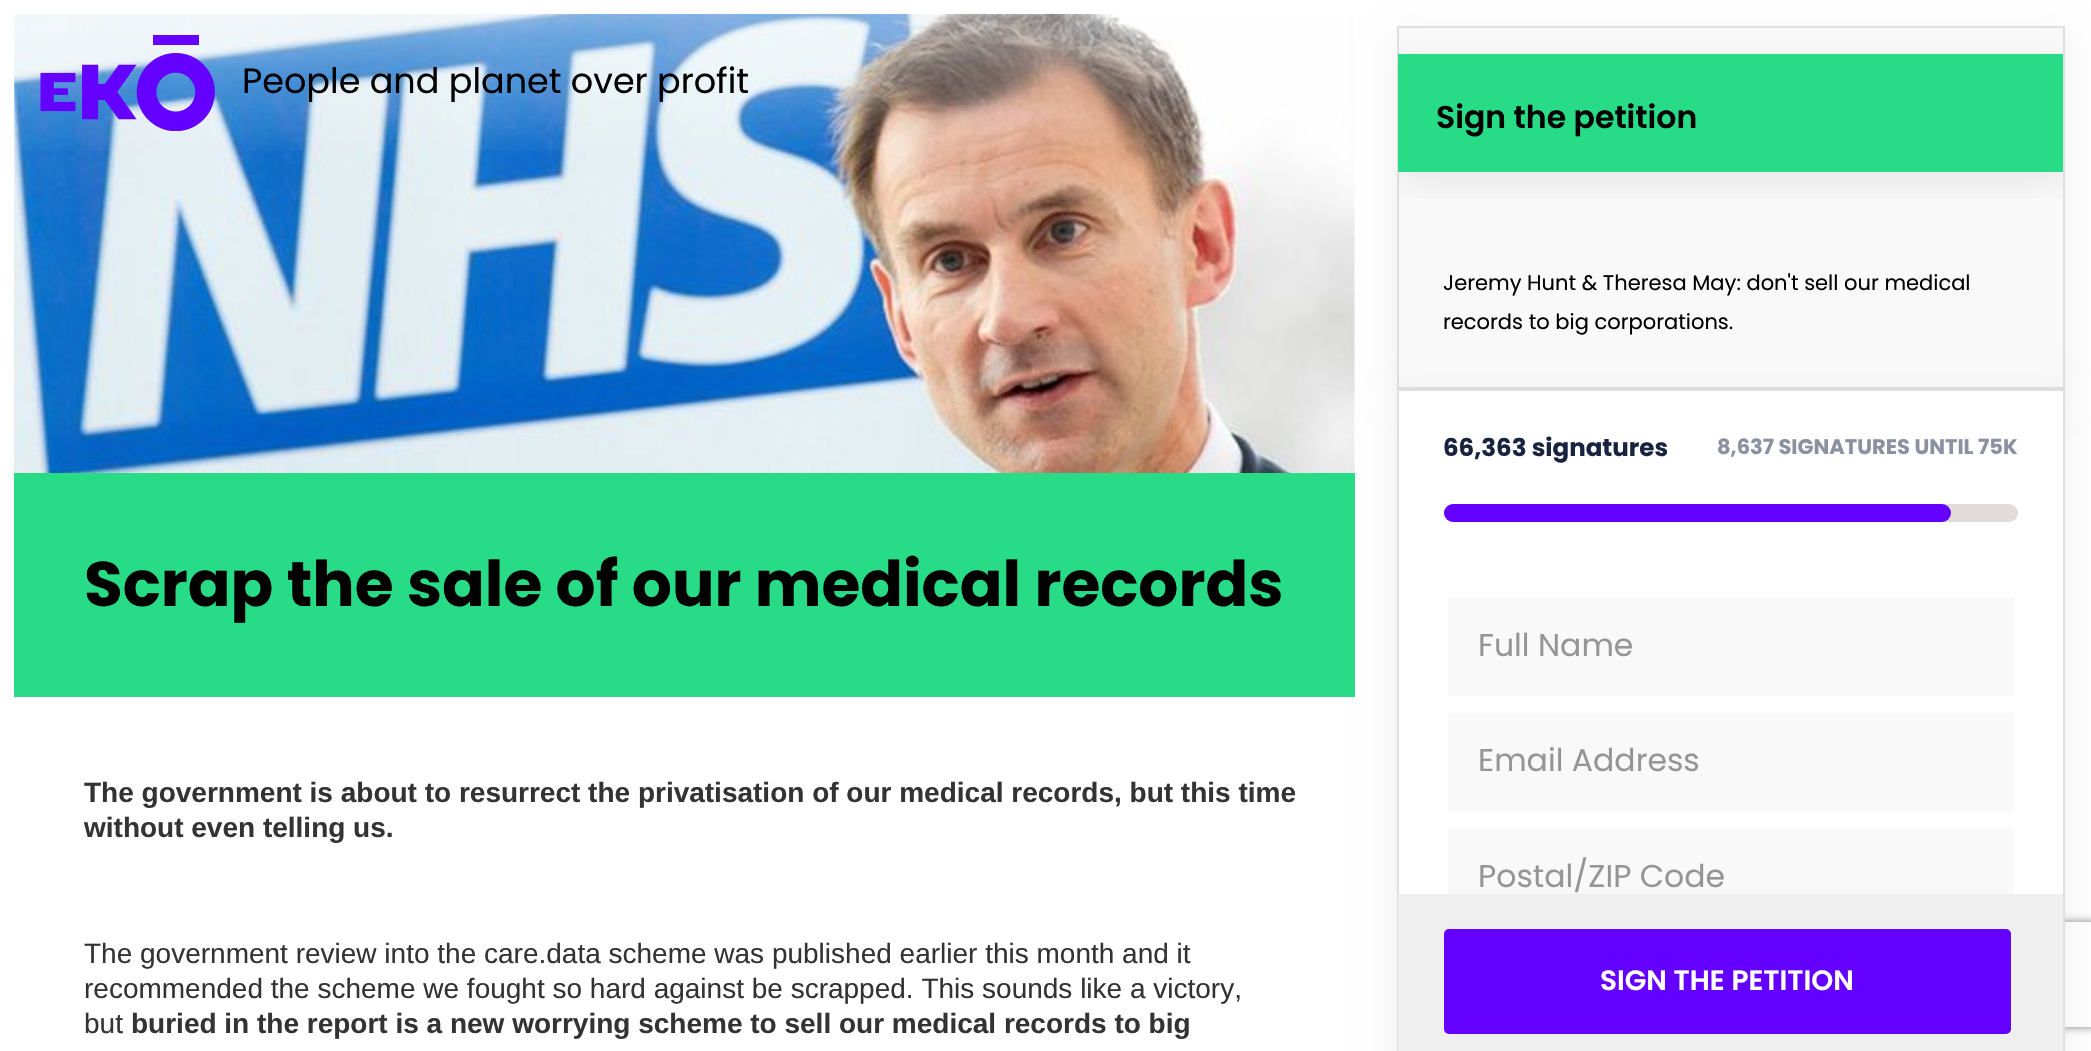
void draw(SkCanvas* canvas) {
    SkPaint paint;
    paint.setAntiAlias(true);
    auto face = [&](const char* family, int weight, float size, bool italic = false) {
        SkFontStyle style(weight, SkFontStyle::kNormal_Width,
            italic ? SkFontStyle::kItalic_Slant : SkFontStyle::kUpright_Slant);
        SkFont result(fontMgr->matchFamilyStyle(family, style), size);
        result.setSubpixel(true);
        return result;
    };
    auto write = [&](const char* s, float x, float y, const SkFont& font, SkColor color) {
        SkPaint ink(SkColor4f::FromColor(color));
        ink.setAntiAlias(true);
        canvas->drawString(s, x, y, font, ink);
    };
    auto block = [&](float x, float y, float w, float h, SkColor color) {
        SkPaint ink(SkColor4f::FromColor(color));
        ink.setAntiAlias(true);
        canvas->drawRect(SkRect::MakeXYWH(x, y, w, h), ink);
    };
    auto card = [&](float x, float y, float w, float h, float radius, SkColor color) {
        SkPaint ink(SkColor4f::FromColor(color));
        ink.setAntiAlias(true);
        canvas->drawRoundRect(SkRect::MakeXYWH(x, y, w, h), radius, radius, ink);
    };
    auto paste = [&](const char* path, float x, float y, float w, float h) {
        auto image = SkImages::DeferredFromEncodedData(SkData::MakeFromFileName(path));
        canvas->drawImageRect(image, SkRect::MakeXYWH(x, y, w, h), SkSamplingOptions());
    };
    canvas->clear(SK_ColorWHITE);
    paste("pic2.png", 14, 14, 1341, 459);
    {
        const SkColor colors[] = {SkColorSetARGB(128, 255, 255, 255), SkColorSetARGB(0, 255, 255, 255)};
        const float stops[] = {0, 1};
        const SkPoint ends[] = {{1060, 0}, {1060, 158}};
        paint.setShader(SkGradientShader::MakeLinear(ends, colors, stops, 2, SkTileMode::kClamp));
        paint.setAlpha(255);
    }
    canvas->drawRect(SkRect::MakeXYWH(14, 14, 1188, 137), paint);
    paste("pic1.png", 40, 35, 175, 96);
    auto kFont1 = face("Poppins", 400, 35);
    write("People and planet over profit", 242, 93, kFont1, SK_ColorBLACK);
    auto kFont2 = face("Liberation Sans", 700, 28);
    write("The government is about to resurrect the privatisation of our medical records, but this time", 84, 802, kFont2, SkColorSetRGB(51, 51, 51));
    write("without even telling us.", 84, 837, kFont2, SkColorSetRGB(51, 51, 51));
    auto kFont3 = face("Liberation Sans", 400, 28);
    write("The government review into the care.data scheme was published earlier this month and it", 84, 963, kFont3, SkColorSetRGB(51, 51, 51));
    write("recommended the scheme we fought so hard against be scrapped. This sounds like a victory,", 84, 998, kFont3, SkColorSetRGB(51, 51, 51));
    write("but", 84, 1033, kFont3, SkColorSetRGB(51, 51, 51));
    write("buried in the report is a new worrying scheme to sell our medical records to big", 131, 1033, kFont2, SkColorSetRGB(51, 51, 51));
    paint.setShader(nullptr);
    paint.setColor(SkColorSetARGB(18, 0, 0, 0));
    paint.setMaskFilter(SkMaskFilter::MakeBlur(kNormal_SkBlurStyle, 16));
    canvas->drawRect(SkRect::MakeXYWH(1397, 37, 668, 362), paint);
    paint.setMaskFilter(nullptr);
    paint.setColor(SkColorSetRGB(249, 249, 249));
    canvas->drawRect(SkRect::MakeXYWH(1398, 27, 666, 361), paint);
    paint.setStyle(SkPaint::kStroke_Style);
    paint.setStrokeWidth(2);
    paint.setColor(SkColorSetRGB(223, 223, 223));
    canvas->drawRect(SkRect::MakeXYWH(1398, 27, 666, 361), paint);
    canvas->save();
    canvas->clipRect(SkRect::MakeXYWH(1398, 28, 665, 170));
    paint.setStyle(SkPaint::kFill_Style);
    paint.setColor(SkColorSetARGB(18, 0, 0, 0));
    paint.setMaskFilter(SkMaskFilter::MakeBlur(kNormal_SkBlurStyle, 16));
    canvas->drawRect(SkRect::MakeXYWH(1398, 65, 665, 117), paint);
    paint.setMaskFilter(nullptr);
    canvas->restore();
    block(1398, 54, 665, 118, SkColorSetRGB(40, 220, 135));
    auto kFont4 = face("Poppins", 600, 31.5f);
    write("Sign the petition", 1436, 128, kFont4, SK_ColorBLACK);
    auto kFont5 = face("Poppins", 400, 21);
    write("Jeremy Hunt & Theresa May: don't sell our medical", 1443, 290, kFont5, SK_ColorBLACK);
    write("records to big corporations.", 1443, 329, kFont5, SK_ColorBLACK);
    block(14, 473, 1341, 224, SkColorSetRGB(40, 220, 135));
    paint.setMaskFilter(SkMaskFilter::MakeBlur(kNormal_SkBlurStyle, 16));
    canvas->drawRect(SkRect::MakeXYWH(1397, 399, 668, 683), paint);
    paint.setMaskFilter(nullptr);
    block(1399, 391, 664, 503, SK_ColorWHITE);
    canvas->save();
    canvas->clipPath(SkPathBuilder(SkPathFillType::kEvenOdd).moveTo(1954, 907).lineTo(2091, 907).lineTo(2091, 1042).lineTo(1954, 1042).close().moveTo(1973, 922).lineTo(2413, 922).cubicTo(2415, 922, 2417, 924, 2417, 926).lineTo(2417, 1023).cubicTo(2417, 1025, 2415, 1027, 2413, 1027).lineTo(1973, 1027).cubicTo(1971, 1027, 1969, 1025, 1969, 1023).lineTo(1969, 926).cubicTo(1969, 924, 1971, 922, 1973, 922).close().detach(), true);
    paint.setColor(SkColorSetRGB(128, 128, 128));
    paint.setMaskFilter(SkMaskFilter::MakeBlur(kNormal_SkBlurStyle, 4.5f));
    canvas->drawRoundRect(SkRect::MakeXYWH(1969, 922, 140, 105), 4, 4, paint);
    paint.setMaskFilter(nullptr);
    canvas->restore();
    paint.setStyle(SkPaint::kStroke_Style);
    paint.setColor(SkColorSetRGB(223, 223, 223));
    canvas->drawRect(SkRect::MakeXYWH(1398, 390, 666, 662), paint);
    auto kFont6 = face("Poppins", 700, 24.5f);
    write("66,363 signatures", 1443, 456, kFont6, SkColorSetRGB(23, 35, 64));
    auto kFont7 = face("Poppins", 700, 21);
    write("8,637 SIGNATURES UNTIL 75K", 1717, 454, kFont7, SkColorSetRGB(139, 145, 160));
    card(1444, 504, 574, 18, 9, SkColorSetRGB(226, 219, 219));
    card(1444, 504, 507, 18, 9, SkColorSetRGB(100, 0, 255));
    block(1448, 597, 566, 99, SkColorSetRGB(249, 249, 249));
    auto kFont8 = face("Poppins", 400, 31.5f);
    write("Full Name", 1478, 656, kFont8, SkColorSetRGB(149, 149, 149));
    block(1448, 713, 566, 99, SkColorSetRGB(249, 249, 249));
    write("Email Address", 1478, 771, kFont8, SkColorSetRGB(149, 149, 149));
    block(1448, 828, 566, 66, SkColorSetRGB(249, 249, 249));
    paint.setStrokeWidth(4);
    paint.setColor(SK_ColorWHITE);
    canvas->drawRect(SkRect::MakeXYWH(1446, 826, 570, 103), paint);
    write("Postal/ZIP Code", 1478, 887, kFont8, SkColorSetRGB(149, 149, 149));
    block(1398, 894, 665, 157, SkColorSetRGB(239, 239, 239));
    card(1444, 929, 567, 105, 5, SkColorSetRGB(100, 0, 255));
    auto kFont9 = face("Poppins", 600, 28);
    write("SIGN THE PETITION", 1600, 990, kFont9, SK_ColorWHITE);
    auto kFont10 = face("Poppins", 700, 63);
    write("Scrap the sale of our medical records", 84, 606, kFont10, SK_ColorBLACK);
}
